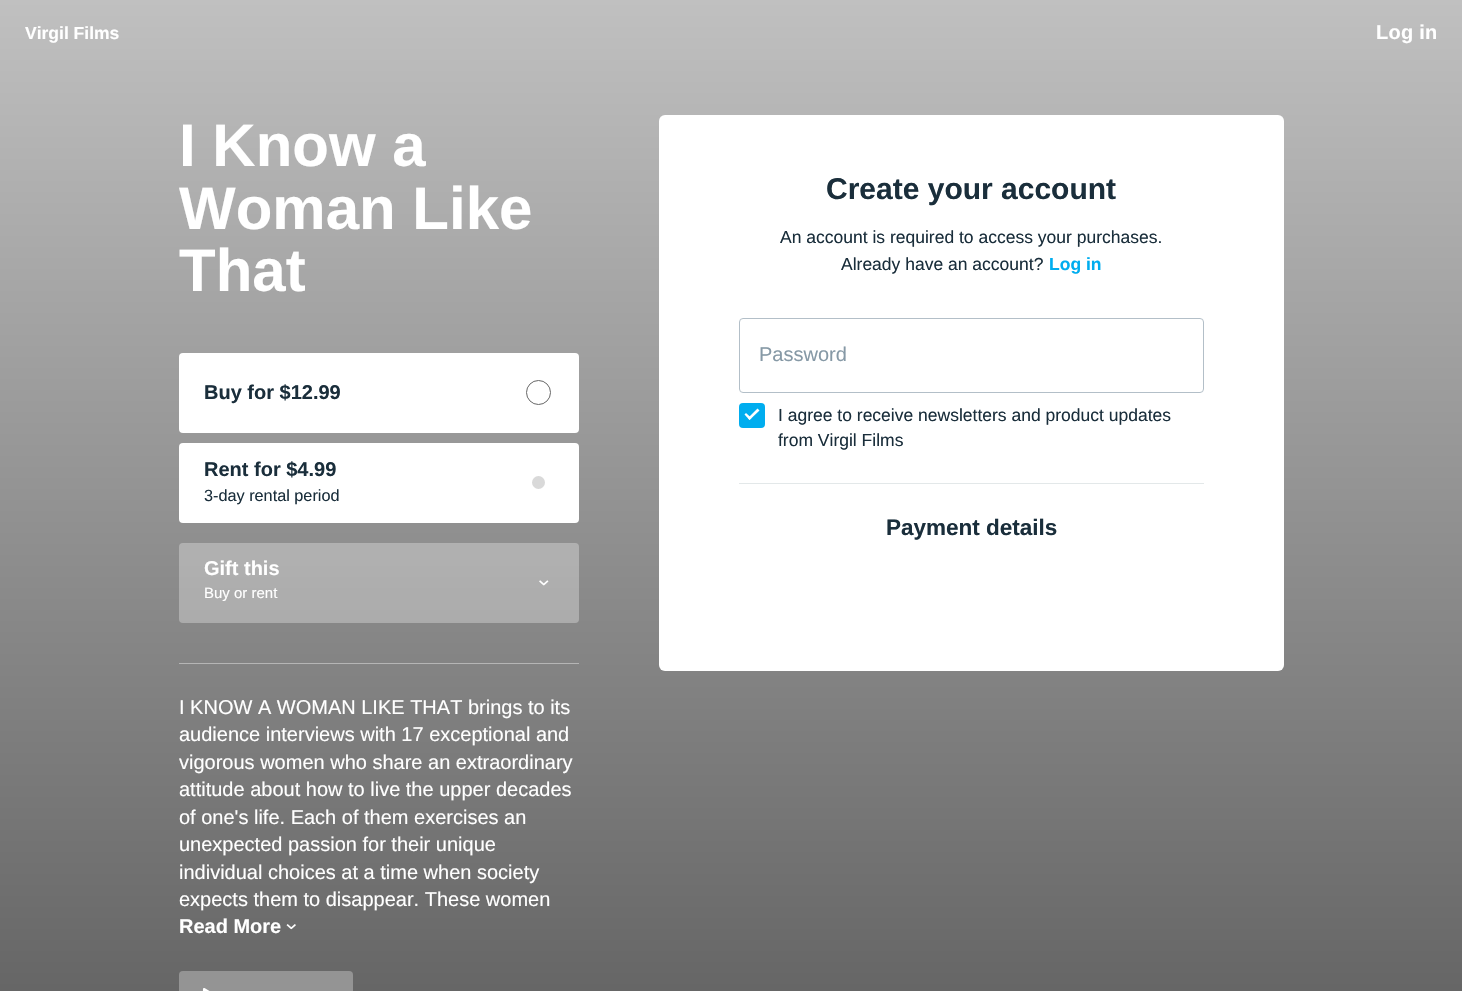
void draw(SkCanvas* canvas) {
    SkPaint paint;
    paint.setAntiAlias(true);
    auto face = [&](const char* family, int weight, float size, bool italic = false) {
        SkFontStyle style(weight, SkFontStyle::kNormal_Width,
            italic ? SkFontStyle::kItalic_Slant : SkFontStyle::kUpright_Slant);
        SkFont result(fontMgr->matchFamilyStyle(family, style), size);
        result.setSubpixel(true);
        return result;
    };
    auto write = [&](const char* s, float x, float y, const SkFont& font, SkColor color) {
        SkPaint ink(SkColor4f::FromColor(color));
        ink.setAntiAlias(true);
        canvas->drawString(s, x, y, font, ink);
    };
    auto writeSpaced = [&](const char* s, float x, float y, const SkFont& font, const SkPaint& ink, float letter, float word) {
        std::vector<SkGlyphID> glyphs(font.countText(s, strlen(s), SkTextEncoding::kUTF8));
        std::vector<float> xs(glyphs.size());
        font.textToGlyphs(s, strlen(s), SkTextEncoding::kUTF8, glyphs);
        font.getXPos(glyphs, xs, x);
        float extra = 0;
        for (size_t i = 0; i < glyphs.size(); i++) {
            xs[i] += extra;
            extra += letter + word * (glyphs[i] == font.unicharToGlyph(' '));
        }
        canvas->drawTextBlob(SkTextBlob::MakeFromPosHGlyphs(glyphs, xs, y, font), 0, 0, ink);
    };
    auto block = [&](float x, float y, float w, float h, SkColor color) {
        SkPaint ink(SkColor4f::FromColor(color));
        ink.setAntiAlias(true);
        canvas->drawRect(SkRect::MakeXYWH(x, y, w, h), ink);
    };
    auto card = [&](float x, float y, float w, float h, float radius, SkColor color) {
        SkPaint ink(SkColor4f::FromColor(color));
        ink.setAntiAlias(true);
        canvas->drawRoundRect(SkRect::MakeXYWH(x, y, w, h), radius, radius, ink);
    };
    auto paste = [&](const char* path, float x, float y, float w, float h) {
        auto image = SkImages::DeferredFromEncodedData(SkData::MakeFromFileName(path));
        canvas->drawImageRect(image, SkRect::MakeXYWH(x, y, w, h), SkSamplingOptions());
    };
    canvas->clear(SK_ColorWHITE);
    {
        const SkColor colors[] = {SkColorSetRGB(192, 192, 192), SkColorSetRGB(90, 90, 90)};
        const float stops[] = {0, 1};
        const SkPoint ends[] = {{731, 0}, {731, 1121}};
        paint.setShader(SkGradientShader::MakeLinear(ends, colors, stops, 2, SkTileMode::kClamp));
        paint.setAlpha(255);
    }
    canvas->drawRect(SkRect::MakeXYWH(0, 0, 1462, 991), paint);
    auto kFont1 = face("Liberation Sans", 700, 17.5f);
    write("Virgil Films", 25, 39, kFont1, SK_ColorWHITE);
    auto kFont2 = face("Liberation Sans", 700, 20);
    paint.setShader(nullptr);
    paint.setColor(SK_ColorWHITE);
    writeSpaced("Log in", 1376, 39, kFont2, paint, 0.25f, 0);
    auto kFont3 = face("Liberation Sans", 700, 60);
    write("I Know a", 179, 166, kFont3, SK_ColorWHITE);
    write("Woman Like", 179, 229, kFont3, SK_ColorWHITE);
    write("That", 179, 291, kFont3, SK_ColorWHITE);
    card(179, 353, 400, 80, 4, SK_ColorWHITE);
    write("Buy for $12.99", 204, 399, kFont2, SkColorSetRGB(26, 46, 59));
    paint.setStyle(SkPaint::kStroke_Style);
    paint.setStrokeWidth(1);
    paint.setColor(SkColorSetRGB(102, 102, 102));
    canvas->drawCircle(538.5f, 392.5f, 12, paint);
    card(179, 443, 400, 80, 4, SK_ColorWHITE);
    write("Rent for $4.99", 204, 476, kFont2, SkColorSetRGB(26, 46, 59));
    auto kFont4 = face("Liberation Sans", 400, 16.25f);
    write("3-day rental period", 204, 501, kFont4, SkColorSetRGB(26, 46, 59));
    paint.setStyle(SkPaint::kFill_Style);
    paint.setColor(SkColorSetRGB(217, 217, 217));
    canvas->drawCircle(538.5f, 482.5f, 9.5f, paint);
    paint.setStyle(SkPaint::kStroke_Style);
    paint.setStrokeWidth(6);
    paint.setColor(SK_ColorWHITE);
    canvas->drawCircle(538.5f, 482.5f, 9.5f, paint);
    paint.setStrokeWidth(1);
    canvas->drawCircle(538.5f, 482.5f, 12, paint);
    card(179, 543, 400, 80, 4, SkColorSetARGB(77, 255, 255, 255));
    write("Gift this", 204, 575, kFont2, SK_ColorWHITE);
    auto kFont5 = face("Liberation Sans", 400, 15);
    write("Buy or rent", 204, 598, kFont5, SK_ColorWHITE);
    paste("pic1.png", 539, 580, 10, 6);
    block(179, 663, 400, 1, SkColorSetRGB(181, 181, 181));
    auto kFont6 = face("Liberation Sans", 400, 20);
    write("I KNOW A WOMAN LIKE THAT brings to its", 179, 714, kFont6, SK_ColorWHITE);
    write("audience interviews with 17 exceptional and", 179, 741, kFont6, SK_ColorWHITE);
    write("vigorous women who share an extraordinary", 179, 769, kFont6, SK_ColorWHITE);
    write("attitude about how to live the upper decades", 179, 796, kFont6, SK_ColorWHITE);
    write("of one's life. Each of them exercises an", 179, 824, kFont6, SK_ColorWHITE);
    write("unexpected passion for their unique", 179, 851, kFont6, SK_ColorWHITE);
    write("individual choices at a time when society", 179, 879, kFont6, SK_ColorWHITE);
    write("expects them to disappear. These women", 179, 906, kFont6, SK_ColorWHITE);
    write("Read More", 179, 933, kFont2, SK_ColorWHITE);
    paste("pic2.png", 286, 924, 10, 6);
    card(179, 971, 174, 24, 4, SkColorSetRGB(148, 148, 148));
    paint.setStrokeWidth(2.1f);
    paint.setStrokeJoin(SkPaint::kRound_Join);
    canvas->drawPath(SkPathBuilder().moveTo(216, 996).lineTo(204, 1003.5f).lineTo(204, 989).close().detach(), paint);
    card(659, 115, 625, 556, 6, SK_ColorWHITE);
    auto kFont7 = face("Liberation Sans", 700, 30);
    write("Create your account", 826, 199, kFont7, SkColorSetRGB(26, 46, 59));
    auto kFont8 = face("Liberation Sans", 400, 17.5f);
    write("An account is required to access your purchases.", 780, 243, kFont8, SkColorSetRGB(26, 46, 59));
    write("Already have an account?", 841, 270, kFont8, SkColorSetRGB(26, 46, 59));
    write("Log in", 1049, 270, kFont1, SkColorSetRGB(0, 173, 239));
    paint.setStrokeWidth(1);
    paint.setStrokeJoin(SkPaint::kMiter_Join);
    paint.setColor(SkColorSetRGB(179, 191, 200));
    canvas->drawRoundRect(SkRect::MakeXYWH(739.5f, 318.5f, 464, 74), 3.5f, 3.5f, paint);
    write("Password", 759, 361, kFont6, SkColorSetRGB(134, 153, 166));
    card(739, 403, 26, 25, 4, SkColorSetRGB(0, 173, 239));
    paint.setStyle(SkPaint::kFill_Style);
    paint.setColor(SK_ColorWHITE);
    canvas->drawPath(SkPathBuilder().moveTo(748, 418).lineTo(757.5f, 408.5f).lineTo(759.5f, 410.5f).lineTo(749.5f, 420).close().detach(), paint);
    canvas->drawPath(SkPathBuilder().moveTo(744.5f, 414.5f).lineTo(746, 413).lineTo(751.5f, 418).lineTo(749.5f, 420).close().detach(), paint);
    write("I agree to receive newsletters and product updates", 778, 421, kFont8, SkColorSetRGB(26, 46, 59));
    write("from Virgil Films", 778, 446, kFont8, SkColorSetRGB(26, 46, 59));
    block(739, 483, 465, 1, SkColorSetRGB(227, 232, 233));
    auto kFont9 = face("Liberation Sans", 700, 22.5f);
    write("Payment details", 886, 535, kFont9, SkColorSetRGB(26, 46, 59));
}
